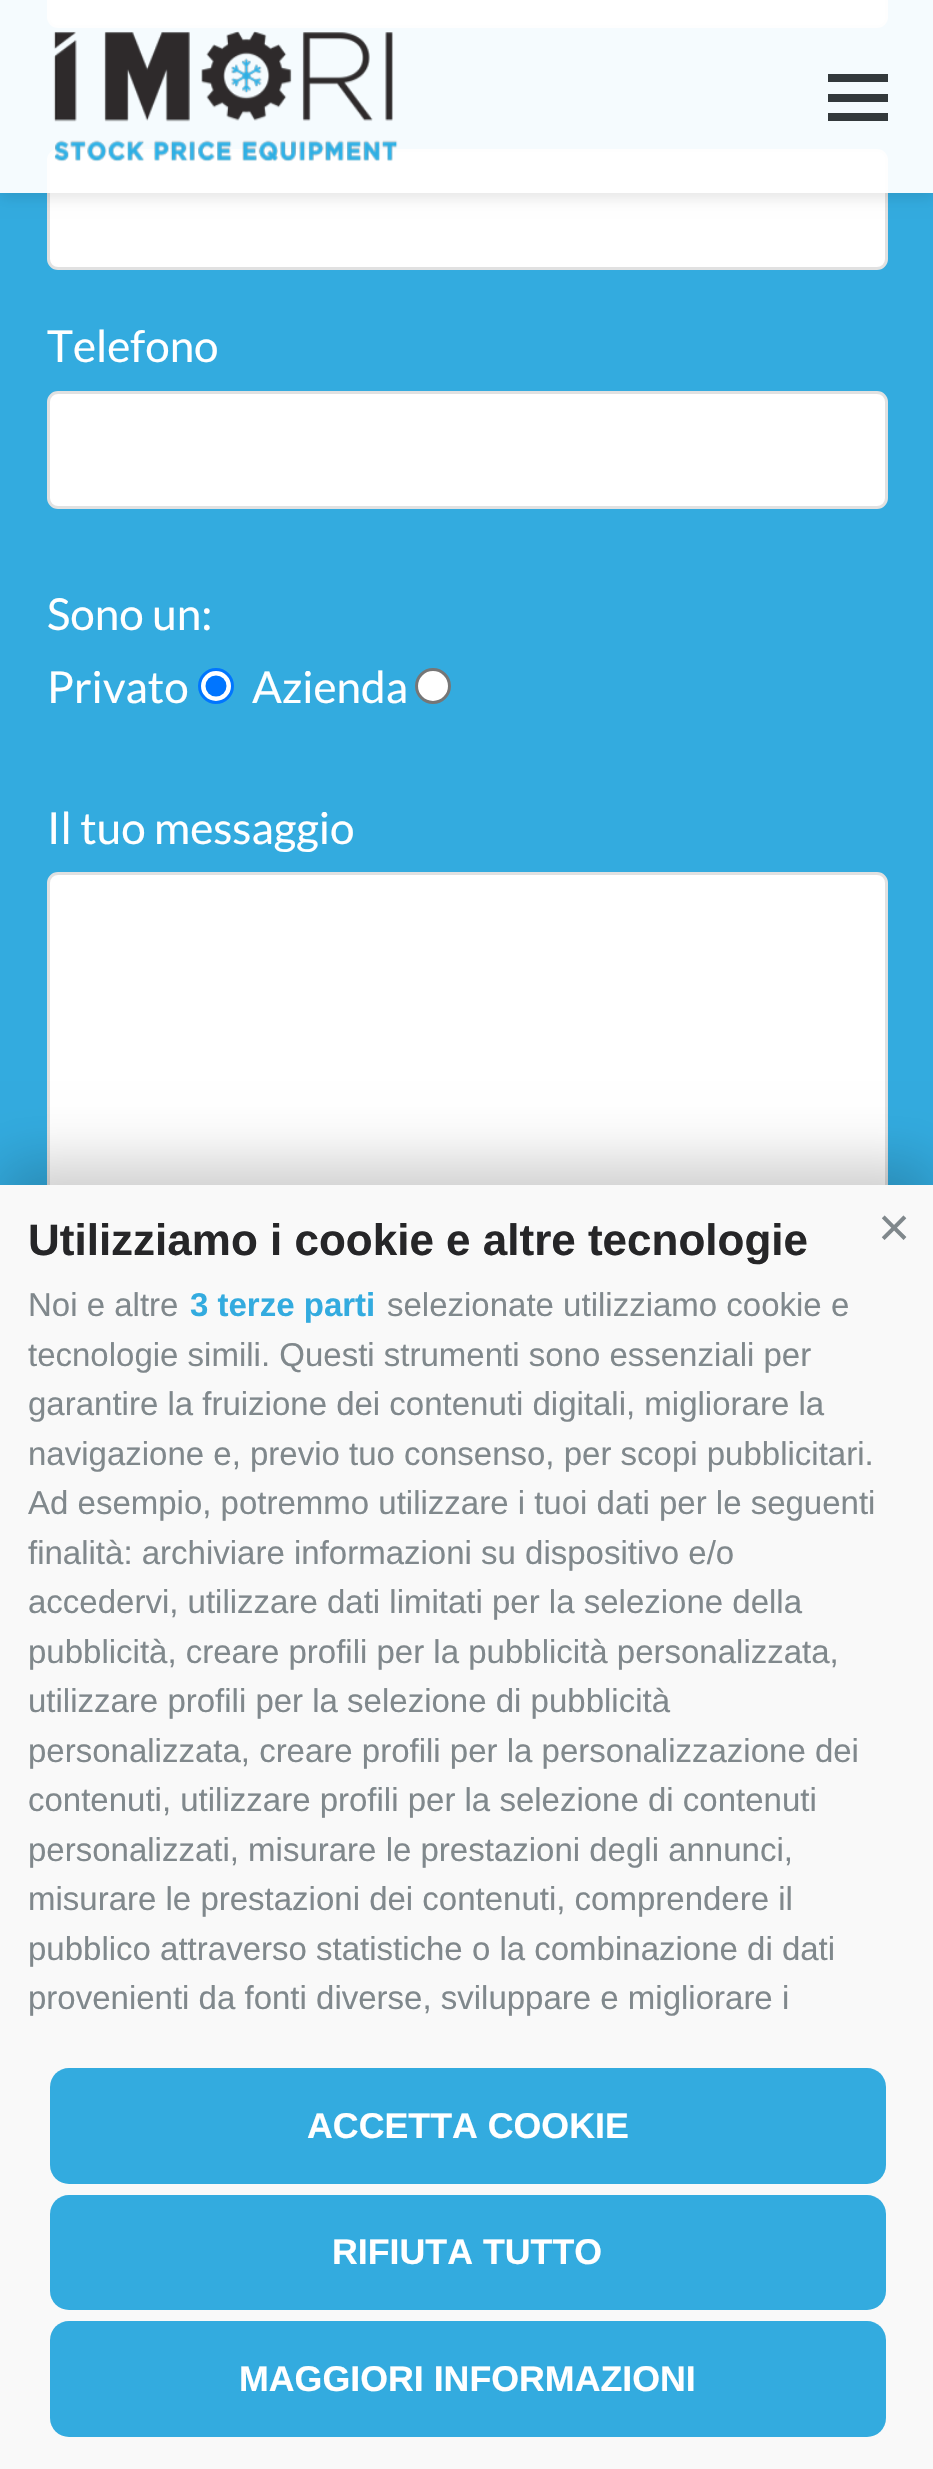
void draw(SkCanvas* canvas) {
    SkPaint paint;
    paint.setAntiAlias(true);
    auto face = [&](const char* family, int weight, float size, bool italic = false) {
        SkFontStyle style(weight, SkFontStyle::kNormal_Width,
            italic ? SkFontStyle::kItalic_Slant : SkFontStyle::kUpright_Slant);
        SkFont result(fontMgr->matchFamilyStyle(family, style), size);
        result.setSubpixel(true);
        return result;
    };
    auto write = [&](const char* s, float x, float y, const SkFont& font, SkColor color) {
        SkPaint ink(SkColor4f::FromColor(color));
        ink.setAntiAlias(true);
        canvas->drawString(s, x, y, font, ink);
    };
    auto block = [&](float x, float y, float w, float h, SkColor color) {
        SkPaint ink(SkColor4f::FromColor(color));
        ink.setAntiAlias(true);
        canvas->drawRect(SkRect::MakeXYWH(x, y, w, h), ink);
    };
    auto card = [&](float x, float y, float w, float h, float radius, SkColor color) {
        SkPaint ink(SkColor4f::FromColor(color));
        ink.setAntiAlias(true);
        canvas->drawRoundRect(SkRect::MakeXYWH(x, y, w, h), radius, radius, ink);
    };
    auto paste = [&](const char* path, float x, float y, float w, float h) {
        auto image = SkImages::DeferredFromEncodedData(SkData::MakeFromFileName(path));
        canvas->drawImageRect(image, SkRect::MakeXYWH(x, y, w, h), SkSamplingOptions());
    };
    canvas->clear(SkColorSetRGB(51, 171, 223));
    paint.setColor(SK_ColorWHITE);
    canvas->drawRoundRect(SkRect::MakeXYWH(48.5f, -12.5f, 838, 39), 9.5f, 9.5f, paint);
    paint.setStyle(SkPaint::kStroke_Style);
    paint.setStrokeWidth(3);
    paint.setColor(SkColorSetRGB(225, 225, 225));
    canvas->drawRoundRect(SkRect::MakeXYWH(48.5f, -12.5f, 838, 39), 9.5f, 9.5f, paint);
    paint.setStyle(SkPaint::kFill_Style);
    paint.setColor(SK_ColorWHITE);
    canvas->drawRoundRect(SkRect::MakeXYWH(48.5f, 150.5f, 838, 118), 9.5f, 9.5f, paint);
    paint.setStyle(SkPaint::kStroke_Style);
    paint.setColor(SkColorSetRGB(225, 225, 225));
    canvas->drawRoundRect(SkRect::MakeXYWH(48.5f, 150.5f, 838, 118), 9.5f, 9.5f, paint);
    canvas->save();
    canvas->clipPath(SkPathBuilder(SkPathFillType::kEvenOdd).moveTo(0, 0).lineTo(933, 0).lineTo(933, 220).lineTo(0, 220).close().moveTo(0, 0).lineTo(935, 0).lineTo(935, 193).lineTo(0, 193).close().detach(), true);
    paint.setStyle(SkPaint::kFill_Style);
    paint.setColor(SkColorSetARGB(26, 0, 0, 0));
    paint.setMaskFilter(SkMaskFilter::MakeBlur(kNormal_SkBlurStyle, 7));
    canvas->drawRect(SkRect::MakeXYWH(0, 6, 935, 192), paint);
    paint.setMaskFilter(nullptr);
    canvas->restore();
    block(0, 0, 933, 193, SkColorSetARGB(242, 255, 255, 255));
    paste("pic1.png", 53, 31, 345, 131);
    block(828, 94, 60, 8, SkColorSetRGB(51, 57, 60));
    block(828, 74, 60, 8, SkColorSetRGB(51, 57, 60));
    block(828, 113, 60, 8, SkColorSetRGB(51, 57, 60));
    auto kFont1 = face("Lato", 400, 44);
    write("Telefono", 47, 362, kFont1, SK_ColorWHITE);
    paint.setColor(SK_ColorWHITE);
    canvas->drawRoundRect(SkRect::MakeXYWH(48.5f, 392.5f, 838, 115), 9.5f, 9.5f, paint);
    paint.setStyle(SkPaint::kStroke_Style);
    paint.setColor(SkColorSetRGB(225, 225, 225));
    canvas->drawRoundRect(SkRect::MakeXYWH(48.5f, 392.5f, 838, 115), 9.5f, 9.5f, paint);
    write("Sono un:", 47, 630, kFont1, SK_ColorWHITE);
    write("Privato", 47, 703, kFont1, SK_ColorWHITE);
    paint.setStyle(SkPaint::kFill_Style);
    paint.setColor(SK_ColorWHITE);
    canvas->drawCircle(216, 686, 16.5f, paint);
    paint.setStyle(SkPaint::kStroke_Style);
    paint.setColor(SkColorSetRGB(0, 117, 255));
    canvas->drawCircle(216, 686, 16.5f, paint);
    paint.setStyle(SkPaint::kFill_Style);
    canvas->drawCircle(216, 686, 10.5f, paint);
    write("Azienda", 252, 703, kFont1, SK_ColorWHITE);
    paint.setColor(SK_ColorWHITE);
    canvas->drawCircle(433, 686, 16.5f, paint);
    paint.setStyle(SkPaint::kStroke_Style);
    paint.setColor(SkColorSetRGB(118, 118, 118));
    canvas->drawCircle(433, 686, 16.5f, paint);
    write("Il tuo messaggio", 47, 844, kFont1, SK_ColorWHITE);
    paint.setStyle(SkPaint::kFill_Style);
    paint.setColor(SK_ColorWHITE);
    canvas->drawRoundRect(SkRect::MakeXYWH(48.5f, 873.5f, 838, 409), 9.5f, 9.5f, paint);
    paint.setStyle(SkPaint::kStroke_Style);
    paint.setColor(SkColorSetRGB(225, 225, 225));
    canvas->drawRoundRect(SkRect::MakeXYWH(48.5f, 873.5f, 838, 409), 9.5f, 9.5f, paint);
    paint.setStyle(SkPaint::kFill_Style);
    paint.setColor(SkColorSetARGB(51, 0, 0, 0));
    paint.setMaskFilter(SkMaskFilter::MakeBlur(kNormal_SkBlurStyle, 27.5f));
    canvas->drawRect(SkRect::MakeXYWH(0, 1163, 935, 1285), paint);
    paint.setMaskFilter(nullptr);
    block(0, 1185, 933, 1284, SkColorSetRGB(249, 249, 249));
    auto kFont2 = face("Liberation Sans", 700, 44);
    write("Utilizziamo i cookie e altre tecnologie", 28, 1255, kFont2, SkColorSetRGB(38, 38, 40));
    auto kFont3 = face("Liberation Sans", 400, 55);
    write("×", 878, 1246, kFont3, SkColorSetRGB(128, 136, 140));
    auto kFont4 = face("Liberation Sans", 400, 33);
    write("Noi e altre", 28, 1316, kFont4, SkColorSetRGB(128, 136, 140));
    auto kFont5 = face("Liberation Sans", 700, 33);
    write("3 terze parti", 190, 1316, kFont5, SkColorSetRGB(51, 171, 223));
    write("selezionate utilizziamo cookie e", 387, 1316, kFont4, SkColorSetRGB(128, 136, 140));
    write("tecnologie simili. Questi strumenti sono essenziali per", 28, 1366, kFont4, SkColorSetRGB(128, 136, 140));
    write("garantire la fruizione dei contenuti digitali, migliorare la", 28, 1415, kFont4, SkColorSetRGB(128, 136, 140));
    write("navigazione e, previo tuo consenso, per scopi pubblicitari.", 28, 1465, kFont4, SkColorSetRGB(128, 136, 140));
    write("Ad esempio, potremmo utilizzare i tuoi dati per le seguenti", 28, 1514, kFont4, SkColorSetRGB(128, 136, 140));
    write("finalità: archiviare informazioni su dispositivo e/o", 28, 1564, kFont4, SkColorSetRGB(128, 136, 140));
    write("accedervi, utilizzare dati limitati per la selezione della", 28, 1613, kFont4, SkColorSetRGB(128, 136, 140));
    write("pubblicità, creare profili per la pubblicità personalizzata,", 28, 1663, kFont4, SkColorSetRGB(128, 136, 140));
    write("utilizzare profili per la selezione di pubblicità", 28, 1712, kFont4, SkColorSetRGB(128, 136, 140));
    write("personalizzata, creare profili per la personalizzazione dei", 28, 1762, kFont4, SkColorSetRGB(128, 136, 140));
    write("contenuti, utilizzare profili per la selezione di contenuti", 28, 1811, kFont4, SkColorSetRGB(128, 136, 140));
    write("personalizzati, misurare le prestazioni degli annunci,", 28, 1861, kFont4, SkColorSetRGB(128, 136, 140));
    write("misurare le prestazioni dei contenuti, comprendere il", 28, 1910, kFont4, SkColorSetRGB(128, 136, 140));
    write("pubblico attraverso statistiche o la combinazione di dati", 28, 1960, kFont4, SkColorSetRGB(128, 136, 140));
    write("provenienti da fonti diverse, sviluppare e migliorare i", 28, 2009, kFont4, SkColorSetRGB(128, 136, 140));
    card(50, 2068, 836, 116, 19, SkColorSetRGB(51, 171, 223));
    auto kFont6 = face("Liberation Sans", 700, 35.75f);
    write("ACCETTA COOKIE", 307, 2138, kFont6, SK_ColorWHITE);
    card(50, 2195, 836, 115, 19, SkColorSetRGB(51, 171, 223));
    write("RIFIUTA TUTTO", 332, 2264, kFont6, SK_ColorWHITE);
    card(50, 2321, 836, 116, 19, SkColorSetRGB(51, 171, 223));
    write("MAGGIORI INFORMAZIONI", 239, 2391, kFont6, SK_ColorWHITE);
}
